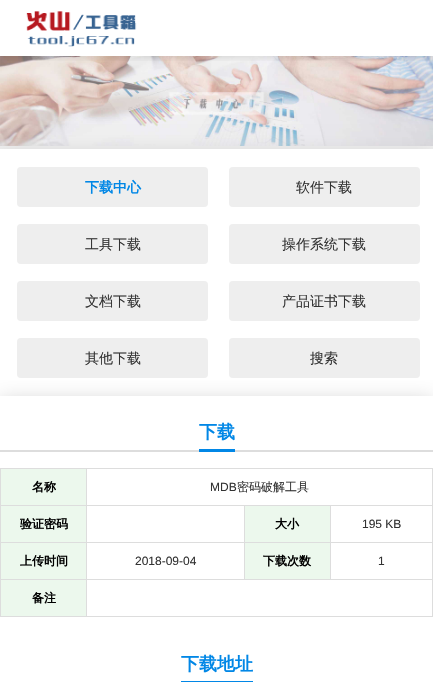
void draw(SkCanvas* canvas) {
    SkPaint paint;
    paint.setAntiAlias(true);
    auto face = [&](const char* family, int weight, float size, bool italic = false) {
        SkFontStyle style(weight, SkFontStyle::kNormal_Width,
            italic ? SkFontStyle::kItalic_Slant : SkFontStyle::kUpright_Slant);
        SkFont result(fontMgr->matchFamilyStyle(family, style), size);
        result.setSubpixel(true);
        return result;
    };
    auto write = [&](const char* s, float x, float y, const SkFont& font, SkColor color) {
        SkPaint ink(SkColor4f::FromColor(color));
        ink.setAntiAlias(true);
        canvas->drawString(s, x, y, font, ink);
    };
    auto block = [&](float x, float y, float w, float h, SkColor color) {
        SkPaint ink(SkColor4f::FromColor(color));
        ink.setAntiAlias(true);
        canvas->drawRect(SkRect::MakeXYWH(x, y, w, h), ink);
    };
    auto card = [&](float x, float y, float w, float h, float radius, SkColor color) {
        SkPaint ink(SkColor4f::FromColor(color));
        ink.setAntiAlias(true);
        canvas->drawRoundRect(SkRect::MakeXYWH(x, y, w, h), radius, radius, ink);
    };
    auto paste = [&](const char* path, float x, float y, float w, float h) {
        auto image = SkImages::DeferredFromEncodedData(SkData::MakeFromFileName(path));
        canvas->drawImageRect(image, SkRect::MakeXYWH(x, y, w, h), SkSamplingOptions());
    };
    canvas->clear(SK_ColorWHITE);
    paste("pic2.png", 0, 56, 433, 90);
    canvas->save();
    canvas->clipRect(SkRect::MakeXYWH(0, 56, 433, 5));
    paint.setColor(SkColorSetARGB(26, 0, 0, 0));
    paint.setMaskFilter(SkMaskFilter::MakeBlur(kNormal_SkBlurStyle, 3));
    canvas->drawRect(SkRect::MakeXYWH(0, 2, 433, 56), paint);
    paint.setMaskFilter(nullptr);
    canvas->restore();
    paste("pic1.png", 26, 11, 111, 36);
    block(0, 146, 433, 3, SkColorSetRGB(240, 240, 240));
    paint.setColor(SkColorSetRGB(204, 204, 204));
    paint.setMaskFilter(SkMaskFilter::MakeBlur(kNormal_SkBlurStyle, 10));
    canvas->drawRect(SkRect::MakeXYWH(0, 154, 433, 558), paint);
    paint.setMaskFilter(nullptr);
    block(0, 149, 433, 533, SK_ColorWHITE);
    card(17, 167, 191, 40, 4, SkColorSetRGB(238, 238, 238));
    auto kFont1 = face("WenQuanYi Zen Hei", 700, 14);
    write("下载中心", 85, 192, kFont1, SkColorSetRGB(1, 135, 230));
    card(229, 167, 191, 40, 4, SkColorSetRGB(238, 238, 238));
    auto kFont2 = face("WenQuanYi Zen Hei", 500, 14);
    write("软件下载", 296, 192, kFont2, SkColorSetRGB(51, 51, 51));
    card(17, 224, 191, 40, 4, SkColorSetRGB(238, 238, 238));
    write("工具下载", 85, 249, kFont2, SkColorSetRGB(51, 51, 51));
    card(229, 224, 191, 40, 4, SkColorSetRGB(238, 238, 238));
    write("操作系统下载", 282, 249, kFont2, SkColorSetRGB(51, 51, 51));
    card(17, 281, 191, 40, 4, SkColorSetRGB(238, 238, 238));
    write("文档下载", 85, 306, kFont2, SkColorSetRGB(51, 51, 51));
    card(229, 281, 191, 40, 4, SkColorSetRGB(238, 238, 238));
    write("产品证书下载", 282, 306, kFont2, SkColorSetRGB(51, 51, 51));
    card(17, 338, 191, 40, 4, SkColorSetRGB(238, 238, 238));
    write("其他下载", 85, 363, kFont2, SkColorSetRGB(51, 51, 51));
    card(229, 338, 191, 40, 4, SkColorSetRGB(238, 238, 238));
    write("搜索", 310, 363, kFont2, SkColorSetRGB(51, 51, 51));
    canvas->save();
    canvas->clipRect(SkRect::MakeXYWH(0, 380, 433, 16));
    paint.setMaskFilter(SkMaskFilter::MakeBlur(kNormal_SkBlurStyle, 10));
    canvas->drawRect(SkRect::MakeXYWH(0, 401, 433, 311), paint);
    paint.setMaskFilter(nullptr);
    canvas->restore();
    block(0, 450, 433, 2, SkColorSetRGB(221, 221, 221));
    block(199, 449, 36, 3, SkColorSetRGB(1, 135, 230));
    auto kFont3 = face("WenQuanYi Zen Hei", 700, 18);
    write("下载", 199, 438, kFont3, SkColorSetRGB(1, 135, 230));
    block(0, 468, 433, 1, SkColorSetRGB(221, 221, 221));
    block(432, 468, 1, 149, SkColorSetRGB(221, 221, 221));
    block(0, 616, 433, 1, SkColorSetRGB(221, 221, 221));
    block(0, 468, 1, 149, SkColorSetRGB(221, 221, 221));
    block(1, 469, 85, 36, SkColorSetRGB(236, 248, 237));
    auto kFont4 = face("WenQuanYi Zen Hei", 700, 12);
    write("名称", 32, 491, kFont4, SK_ColorBLACK);
    block(330, 505, 103, 1, SkColorSetRGB(221, 221, 221));
    block(330, 542, 103, 1, SkColorSetRGB(221, 221, 221));
    block(86, 579, 347, 1, SkColorSetRGB(221, 221, 221));
    block(330, 542, 1, 38, SkColorSetRGB(221, 221, 221));
    block(244, 542, 87, 1, SkColorSetRGB(221, 221, 221));
    block(330, 505, 1, 38, SkColorSetRGB(221, 221, 221));
    block(244, 505, 87, 1, SkColorSetRGB(221, 221, 221));
    block(244, 542, 1, 38, SkColorSetRGB(221, 221, 221));
    block(86, 542, 159, 1, SkColorSetRGB(221, 221, 221));
    block(244, 505, 1, 38, SkColorSetRGB(221, 221, 221));
    block(86, 505, 159, 1, SkColorSetRGB(221, 221, 221));
    block(86, 579, 1, 38, SkColorSetRGB(221, 221, 221));
    block(0, 579, 87, 1, SkColorSetRGB(221, 221, 221));
    block(86, 542, 1, 38, SkColorSetRGB(221, 221, 221));
    block(0, 542, 87, 1, SkColorSetRGB(221, 221, 221));
    block(86, 505, 1, 38, SkColorSetRGB(221, 221, 221));
    block(0, 505, 87, 1, SkColorSetRGB(221, 221, 221));
    block(86, 468, 1, 38, SkColorSetRGB(221, 221, 221));
    auto kFont5 = face("Liberation Sans", 400, 12);
    write("MDB", 210, 491, kFont5, SkColorSetRGB(51, 51, 51));
    auto kFont6 = face("WenQuanYi Zen Hei", 500, 12);
    write("密码破解工具", 237, 491, kFont6, SkColorSetRGB(51, 51, 51));
    block(1, 506, 85, 36, SkColorSetRGB(236, 248, 237));
    write("验证密码", 20, 528, kFont4, SK_ColorBLACK);
    block(245, 506, 85, 36, SkColorSetRGB(236, 248, 237));
    write("大小", 275, 528, kFont4, SK_ColorBLACK);
    write("195 KB", 362, 528, kFont5, SkColorSetRGB(51, 51, 51));
    block(1, 543, 85, 36, SkColorSetRGB(236, 248, 237));
    write("上传时间", 20, 565, kFont4, SK_ColorBLACK);
    write("2018-09-04", 135, 565, kFont5, SkColorSetRGB(51, 51, 51));
    block(245, 543, 85, 36, SkColorSetRGB(236, 248, 237));
    write("下载次数", 263, 565, kFont4, SK_ColorBLACK);
    write("1", 378, 565, kFont5, SkColorSetRGB(51, 51, 51));
    block(1, 580, 85, 36, SkColorSetRGB(236, 248, 237));
    write("备注", 32, 602, kFont4, SK_ColorBLACK);
    block(181, 681, 72, 1, SkColorSetRGB(1, 135, 230));
    write("下载地址", 181, 670, kFont3, SkColorSetRGB(1, 135, 230));
}
